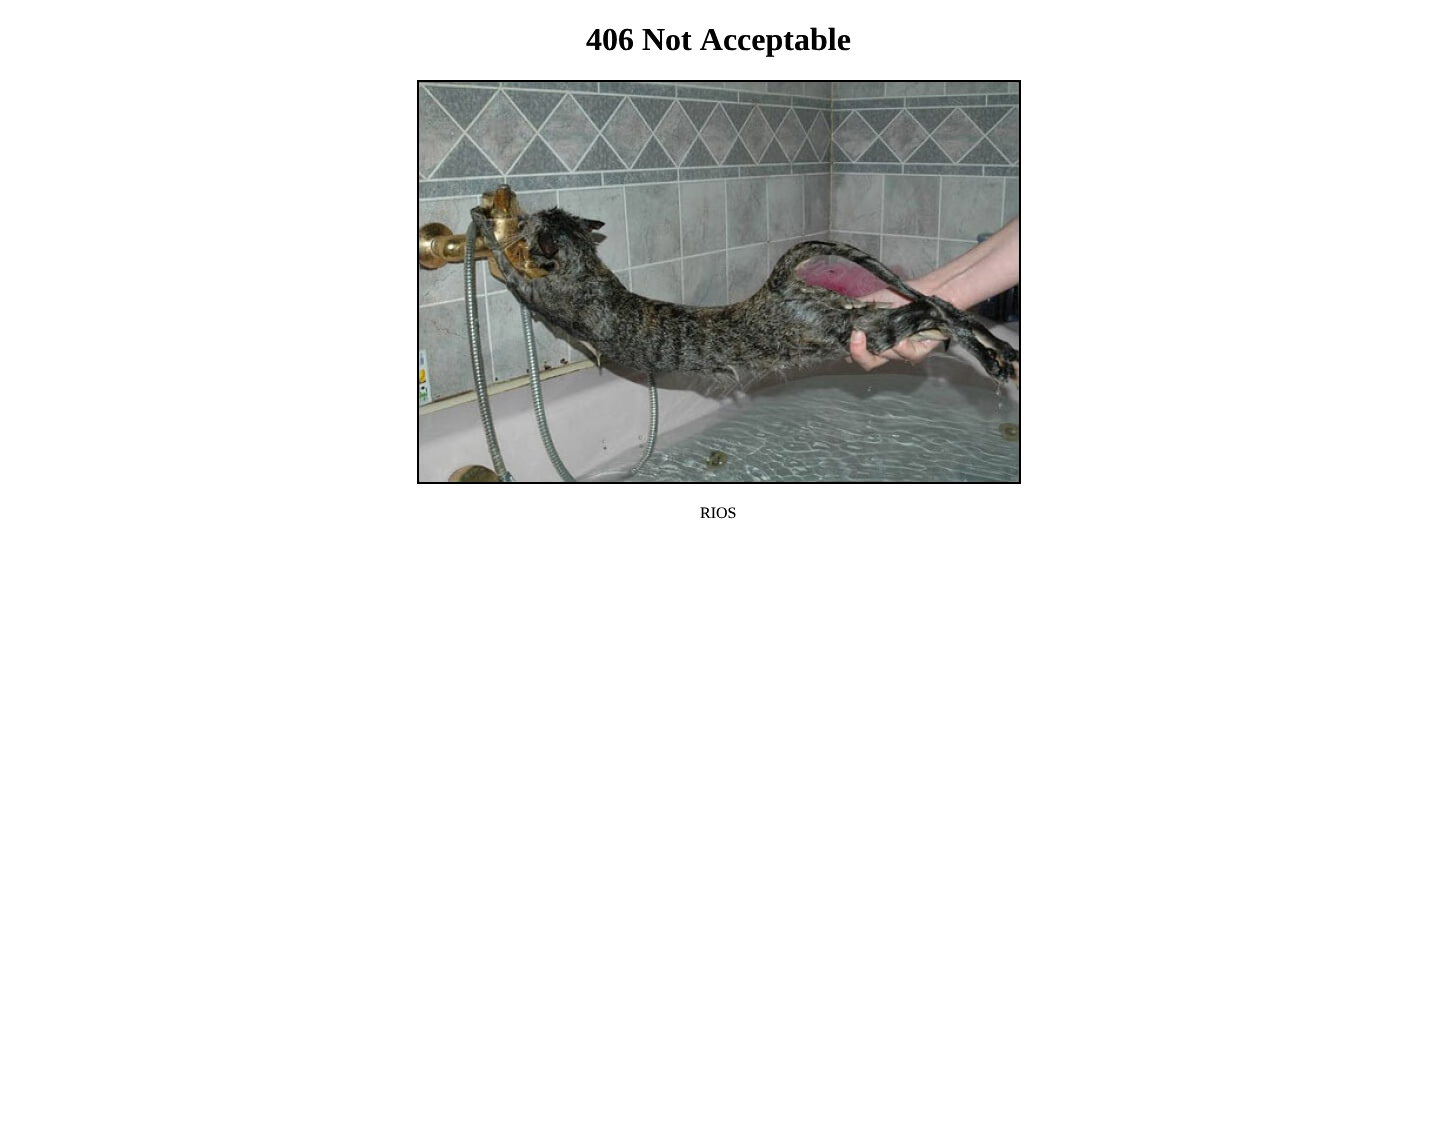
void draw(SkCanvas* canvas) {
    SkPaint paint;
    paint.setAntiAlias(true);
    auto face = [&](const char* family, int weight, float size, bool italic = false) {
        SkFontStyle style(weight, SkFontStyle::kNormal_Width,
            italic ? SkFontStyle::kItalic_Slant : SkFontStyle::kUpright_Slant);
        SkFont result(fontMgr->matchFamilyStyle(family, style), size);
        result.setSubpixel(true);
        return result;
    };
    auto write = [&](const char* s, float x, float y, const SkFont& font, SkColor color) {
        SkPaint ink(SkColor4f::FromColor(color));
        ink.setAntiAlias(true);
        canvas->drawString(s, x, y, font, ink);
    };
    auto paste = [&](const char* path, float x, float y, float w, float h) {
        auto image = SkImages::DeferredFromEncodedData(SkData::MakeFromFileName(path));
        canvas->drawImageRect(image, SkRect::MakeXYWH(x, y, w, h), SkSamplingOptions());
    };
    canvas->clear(SK_ColorWHITE);
    auto kFont1 = face("Liberation Serif", 700, 32);
    write("406 Not Acceptable", 586, 50, kFont1, SK_ColorBLACK);
    paint.setStyle(SkPaint::kStroke_Style);
    paint.setStrokeWidth(2);
    paint.setColor(SK_ColorBLACK);
    canvas->drawRect(SkRect::MakeXYWH(418, 81, 602, 402), paint);
    paste("pic1.png", 419, 82, 600, 400);
    auto kFont2 = face("Liberation Serif", 400, 16);
    write("RIOS", 700, 518, kFont2, SK_ColorBLACK);
}
